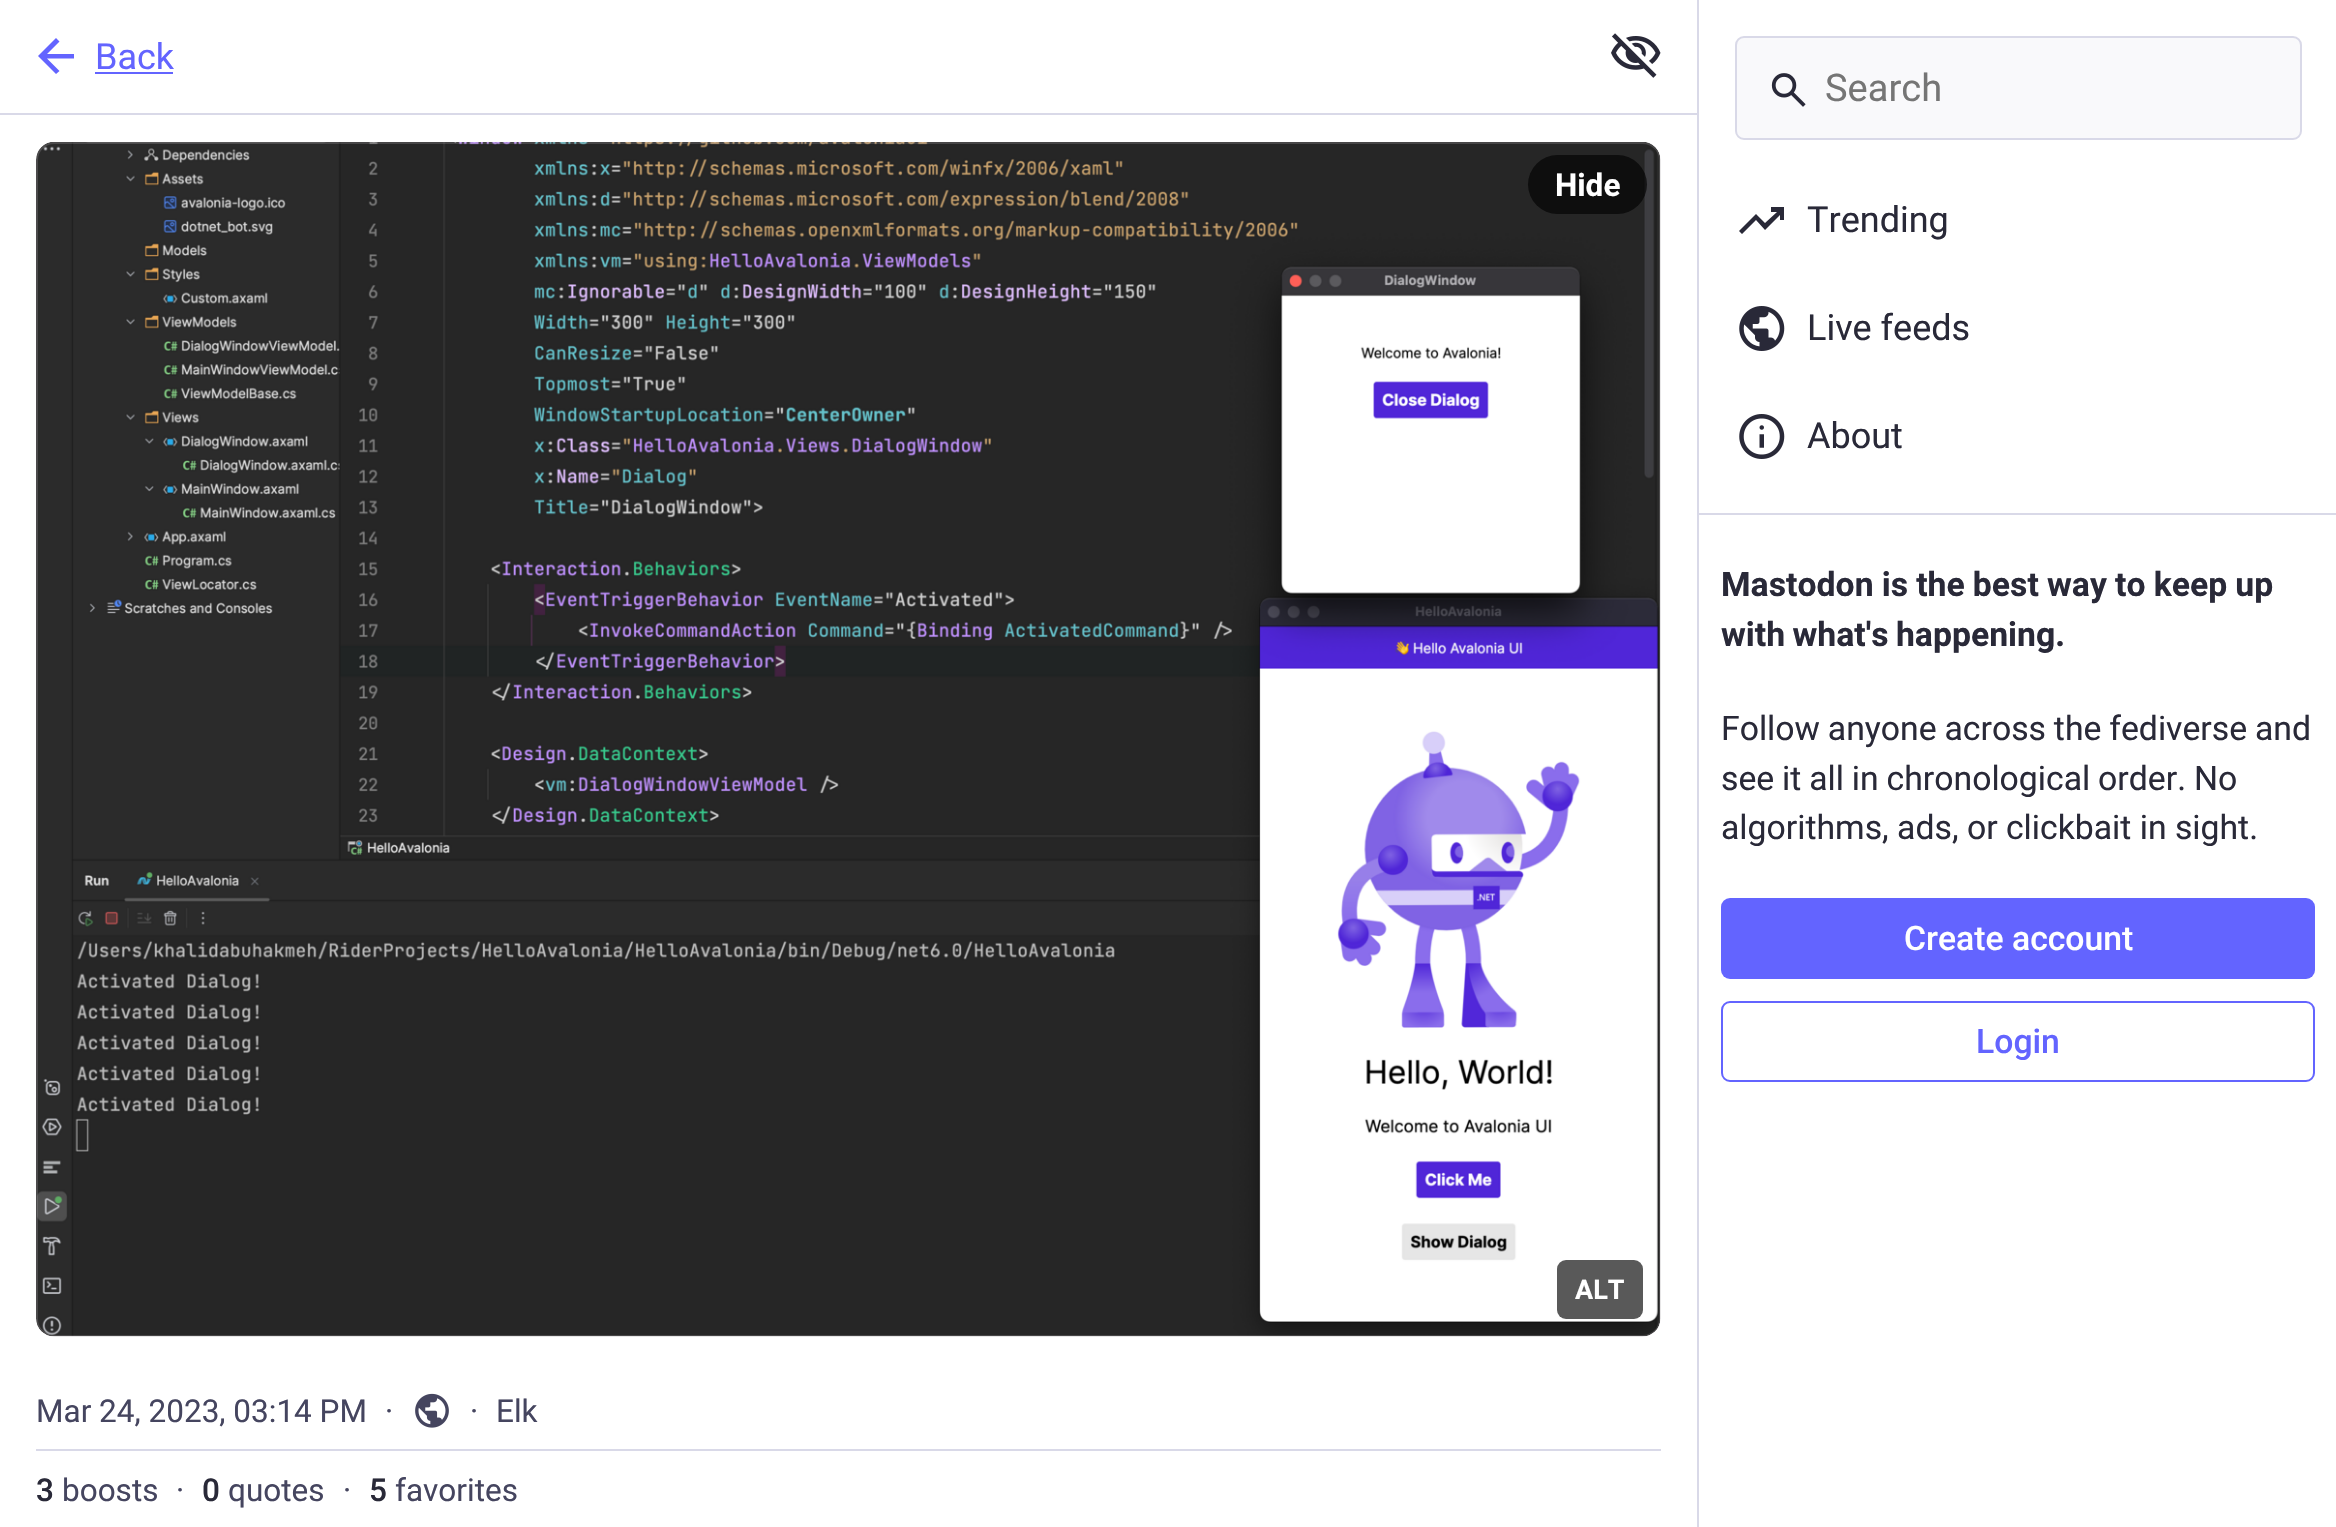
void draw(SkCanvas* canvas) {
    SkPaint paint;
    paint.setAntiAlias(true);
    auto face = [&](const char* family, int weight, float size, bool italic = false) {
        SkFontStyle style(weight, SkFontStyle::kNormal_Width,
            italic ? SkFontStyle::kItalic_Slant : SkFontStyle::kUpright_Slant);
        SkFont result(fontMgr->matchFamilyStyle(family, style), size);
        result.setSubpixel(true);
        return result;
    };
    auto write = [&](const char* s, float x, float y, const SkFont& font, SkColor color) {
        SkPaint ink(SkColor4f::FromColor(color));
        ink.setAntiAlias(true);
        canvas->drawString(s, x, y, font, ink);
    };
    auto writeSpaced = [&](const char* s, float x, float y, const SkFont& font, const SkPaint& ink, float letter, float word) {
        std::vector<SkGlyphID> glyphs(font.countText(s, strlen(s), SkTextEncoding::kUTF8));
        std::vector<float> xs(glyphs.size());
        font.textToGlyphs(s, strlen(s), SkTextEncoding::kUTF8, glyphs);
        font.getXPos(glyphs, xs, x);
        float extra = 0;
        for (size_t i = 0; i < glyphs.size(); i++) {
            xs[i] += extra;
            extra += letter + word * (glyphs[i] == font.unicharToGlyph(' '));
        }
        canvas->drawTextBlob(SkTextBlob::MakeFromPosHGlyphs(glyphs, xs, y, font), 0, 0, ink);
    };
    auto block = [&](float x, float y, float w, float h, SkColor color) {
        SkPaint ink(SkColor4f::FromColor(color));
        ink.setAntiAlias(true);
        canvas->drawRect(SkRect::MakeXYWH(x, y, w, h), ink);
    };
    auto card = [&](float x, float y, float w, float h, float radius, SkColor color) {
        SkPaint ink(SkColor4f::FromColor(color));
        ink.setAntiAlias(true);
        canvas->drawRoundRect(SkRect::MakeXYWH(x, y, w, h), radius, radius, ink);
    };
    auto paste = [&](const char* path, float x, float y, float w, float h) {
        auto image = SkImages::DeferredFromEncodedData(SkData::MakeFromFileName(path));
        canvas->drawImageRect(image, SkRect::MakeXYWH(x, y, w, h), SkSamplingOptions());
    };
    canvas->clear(SK_ColorWHITE);
    block(0, 113, 1697, 2, SkColorSetRGB(217, 217, 232));
    paint.setColor(SkColorSetRGB(99, 100, 255));
    canvas->drawPath(SkPathBuilder().moveTo(47, 58.5f).lineTo(59.5f, 71).lineTo(56, 74).lineTo(38, 56).lineTo(56, 38).lineTo(59.5f, 41.5f).lineTo(47, 54).lineTo(74, 54).lineTo(74, 58.5f).close().detach(), paint);
    auto kFont1 = face("Roboto", 400, 36);
    write("Back", 95, 69, kFont1, SkColorSetRGB(99, 100, 255));
    block(95, 72, 78, 2, SkColorSetRGB(99, 100, 255));
    paste("pic1.png", 1611, 33, 50, 45);
    paste("pic2.png", 36, 142, 1625, 1195);
    paint.setStyle(SkPaint::kStroke_Style);
    paint.setStrokeWidth(2);
    paint.setColor(SkColorSetARGB(38, 252, 248, 255));
    canvas->drawRoundRect(SkRect::MakeXYWH(37, 143, 1623, 1193), 17, 17, paint);
    card(1528, 155, 119, 59, 29.5f, SkColorSetARGB(166, 0, 0, 0));
    auto kFont2 = face("Roboto", 700, 31.5f);
    write("Hide", 1555, 196, kFont2, SK_ColorWHITE);
    card(1557, 1260, 86, 59, 9, SkColorSetRGB(89, 89, 89));
    auto kFont3 = face("Roboto", 700, 27);
    write("ALT", 1575, 1299, kFont3, SK_ColorWHITE);
    block(36, 1449, 1625, 2, SkColorSetRGB(217, 217, 232));
    auto kFont4 = face("Roboto", 400, 31.5f);
    write("Mar 24, 2023, 03:14 PM", 36, 1422, kFont4, SkColorSetRGB(69, 69, 95));
    write("·", 385, 1422, kFont4, SkColorSetRGB(69, 69, 95));
    paste("pic3.png", 415, 1393, 34, 35);
    write("·", 470, 1422, kFont4, SkColorSetRGB(69, 69, 95));
    write("Elk", 496, 1422, kFont4, SkColorSetRGB(69, 69, 95));
    auto kFont5 = face("Roboto", 500, 31.5f);
    write("3", 36, 1501, kFont5, SkColorSetRGB(41, 41, 56));
    write("boosts", 62, 1501, kFont4, SkColorSetRGB(69, 69, 95));
    write("·", 176, 1501, kFont4, SkColorSetRGB(69, 69, 95));
    write("0", 202, 1501, kFont5, SkColorSetRGB(41, 41, 56));
    write("quotes", 228, 1501, kFont4, SkColorSetRGB(69, 69, 95));
    write("·", 343, 1501, kFont4, SkColorSetRGB(69, 69, 95));
    write("5", 369, 1501, kFont5, SkColorSetRGB(41, 41, 56));
    write("favorites", 395, 1501, kFont4, SkColorSetRGB(69, 69, 95));
    block(1697, 0, 2, 1527, SkColorSetRGB(217, 217, 232));
    paint.setStyle(SkPaint::kFill_Style);
    paint.setColor(SkColorSetRGB(249, 249, 251));
    canvas->drawRoundRect(SkRect::MakeXYWH(1736, 37, 565, 102), 8, 8, paint);
    paint.setStyle(SkPaint::kStroke_Style);
    paint.setColor(SkColorSetRGB(217, 217, 232));
    canvas->drawRoundRect(SkRect::MakeXYWH(1736, 37, 565, 102), 8, 8, paint);
    paste("pic4.png", 1771, 73, 35, 34);
    auto kFont6 = face("Roboto", 400, 38);
    write("Search", 1825, 101, kFont6, SkColorSetRGB(117, 117, 117));
    paint.setStyle(SkPaint::kFill_Style);
    paint.setColor(SkColorSetRGB(41, 41, 56));
    canvas->drawPath(SkPathBuilder().moveTo(1742, 234).lineTo(1739, 231).lineTo(1756, 214).lineTo(1765, 223).lineTo(1777, 212).lineTo(1771, 212).lineTo(1771, 207).lineTo(1784, 207).lineTo(1784, 220).lineTo(1780, 220).lineTo(1780, 215).lineTo(1765, 230).lineTo(1756, 220).close().detach(), paint);
    write("Trending", 1807, 232, kFont1, SkColorSetRGB(41, 41, 56));
    paste("pic5.png", 1739, 306, 46, 45);
    write("Live feeds", 1807, 340, kFont1, SkColorSetRGB(41, 41, 56));
    paste("pic6.png", 1739, 414, 46, 45);
    write("About", 1807, 448, kFont1, SkColorSetRGB(41, 41, 56));
    block(1699, 513, 637, 2, SkColorSetRGB(217, 217, 232));
    auto kFont7 = face("Roboto", 700, 33.75f);
    writeSpaced("Mastodon is the best way to keep up", 1721, 596, kFont7, paint, 0, -0.25f);
    writeSpaced("with what's happening.", 1721, 646, kFont7, paint, 0, -1);
    auto kFont8 = face("Roboto", 400, 33.75f);
    writeSpaced("Follow anyone across the fediverse and", 1721, 740, kFont8, paint, 0, -0.5f);
    writeSpaced("see it all in chronological order. No", 1721, 790, kFont8, paint, 0, -0.5f);
    write("algorithms, ads, or clickbait in sight.", 1721, 839, kFont8, SkColorSetRGB(41, 41, 56));
    card(1721, 898, 594, 81, 9, SkColorSetRGB(99, 100, 255));
    auto kFont9 = face("Roboto", 500, 33.75f);
    write("Create account", 1904, 950, kFont9, SK_ColorWHITE);
    paint.setStyle(SkPaint::kStroke_Style);
    paint.setColor(SkColorSetRGB(99, 100, 255));
    canvas->drawRoundRect(SkRect::MakeXYWH(1722, 1002, 592, 79), 8, 8, paint);
    write("Login", 1976, 1053, kFont9, SkColorSetRGB(99, 100, 255));
}
